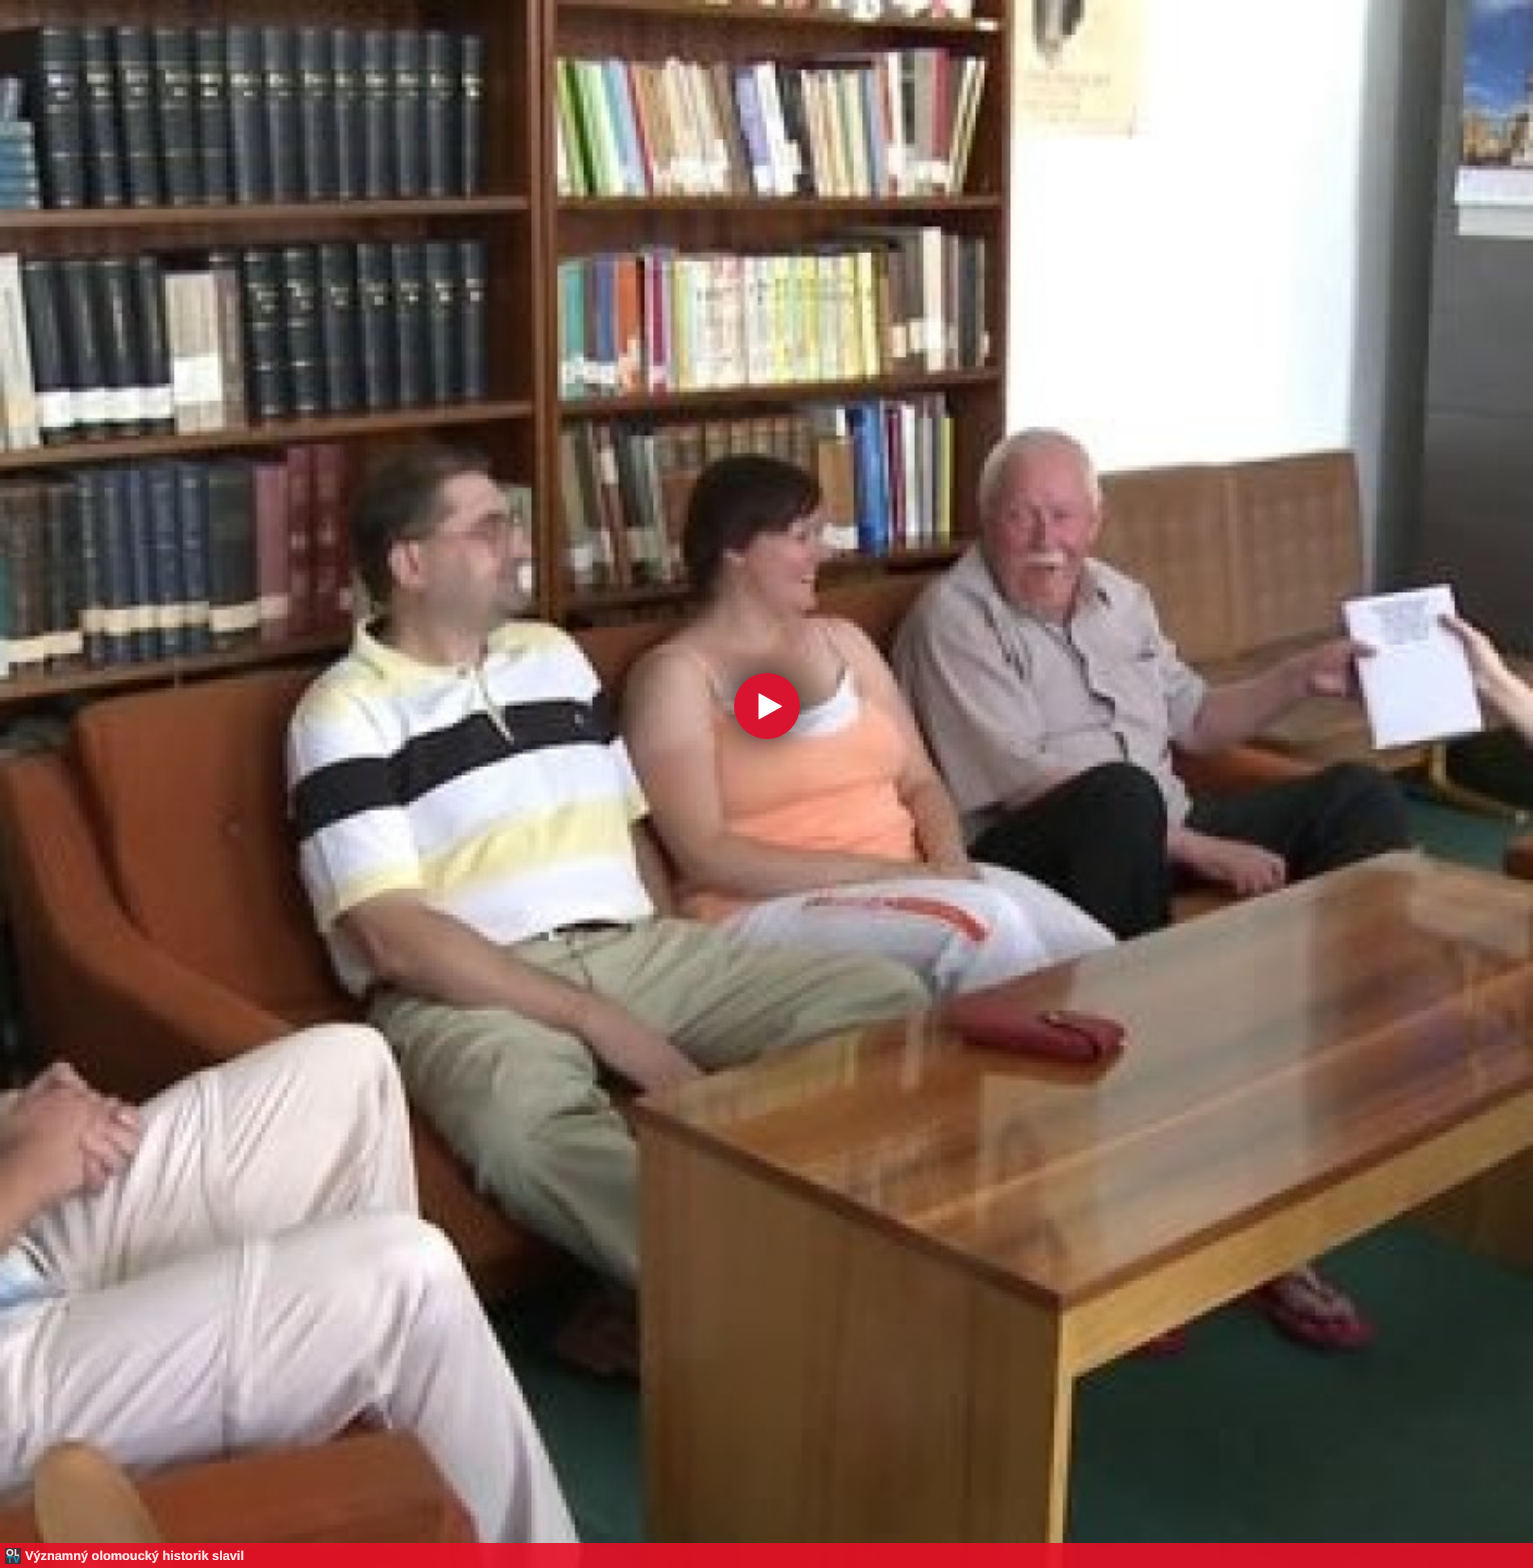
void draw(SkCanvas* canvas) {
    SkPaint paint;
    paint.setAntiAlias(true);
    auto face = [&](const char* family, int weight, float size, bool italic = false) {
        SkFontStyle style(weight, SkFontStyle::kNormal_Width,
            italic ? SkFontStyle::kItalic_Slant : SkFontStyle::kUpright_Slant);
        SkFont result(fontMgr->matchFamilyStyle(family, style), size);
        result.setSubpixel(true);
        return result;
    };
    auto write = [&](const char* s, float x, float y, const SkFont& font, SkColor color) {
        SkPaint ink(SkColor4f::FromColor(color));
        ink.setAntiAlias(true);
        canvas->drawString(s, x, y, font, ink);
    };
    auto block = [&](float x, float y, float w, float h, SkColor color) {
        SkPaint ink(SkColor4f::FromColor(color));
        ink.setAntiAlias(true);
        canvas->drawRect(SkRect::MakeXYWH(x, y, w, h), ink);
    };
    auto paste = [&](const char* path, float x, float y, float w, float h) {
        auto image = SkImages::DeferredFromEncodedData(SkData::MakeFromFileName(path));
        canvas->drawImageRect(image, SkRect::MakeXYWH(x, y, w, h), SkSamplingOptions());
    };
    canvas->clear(SK_ColorWHITE);
    paste("pic1.png", 0, 0, 1533, 1568);
    paint.setColor(SK_ColorBLACK);
    paint.setMaskFilter(SkMaskFilter::MakeBlur(kNormal_SkBlurStyle, 20));
    canvas->drawRoundRect(SkRect::MakeXYWH(734, 673, 66, 66), 33, 33, paint);
    paint.setMaskFilter(nullptr);
    paint.setColor(SkColorSetRGB(217, 20, 48));
    canvas->drawCircle(767, 706, 33, paint);
    paste("pic2.png", 758, 693, 24, 27);
    block(0, 1543, 1533, 25, SkColorSetARGB(230, 231, 14, 37));
    paste("pic3.png", 5, 1548, 16, 16);
    auto kFont1 = face("Liberation Sans", 700, 12.75f);
    write("Významný olomoucký historik slavil", 25, 1560, kFont1, SkColorSetRGB(252, 232, 233));
}
